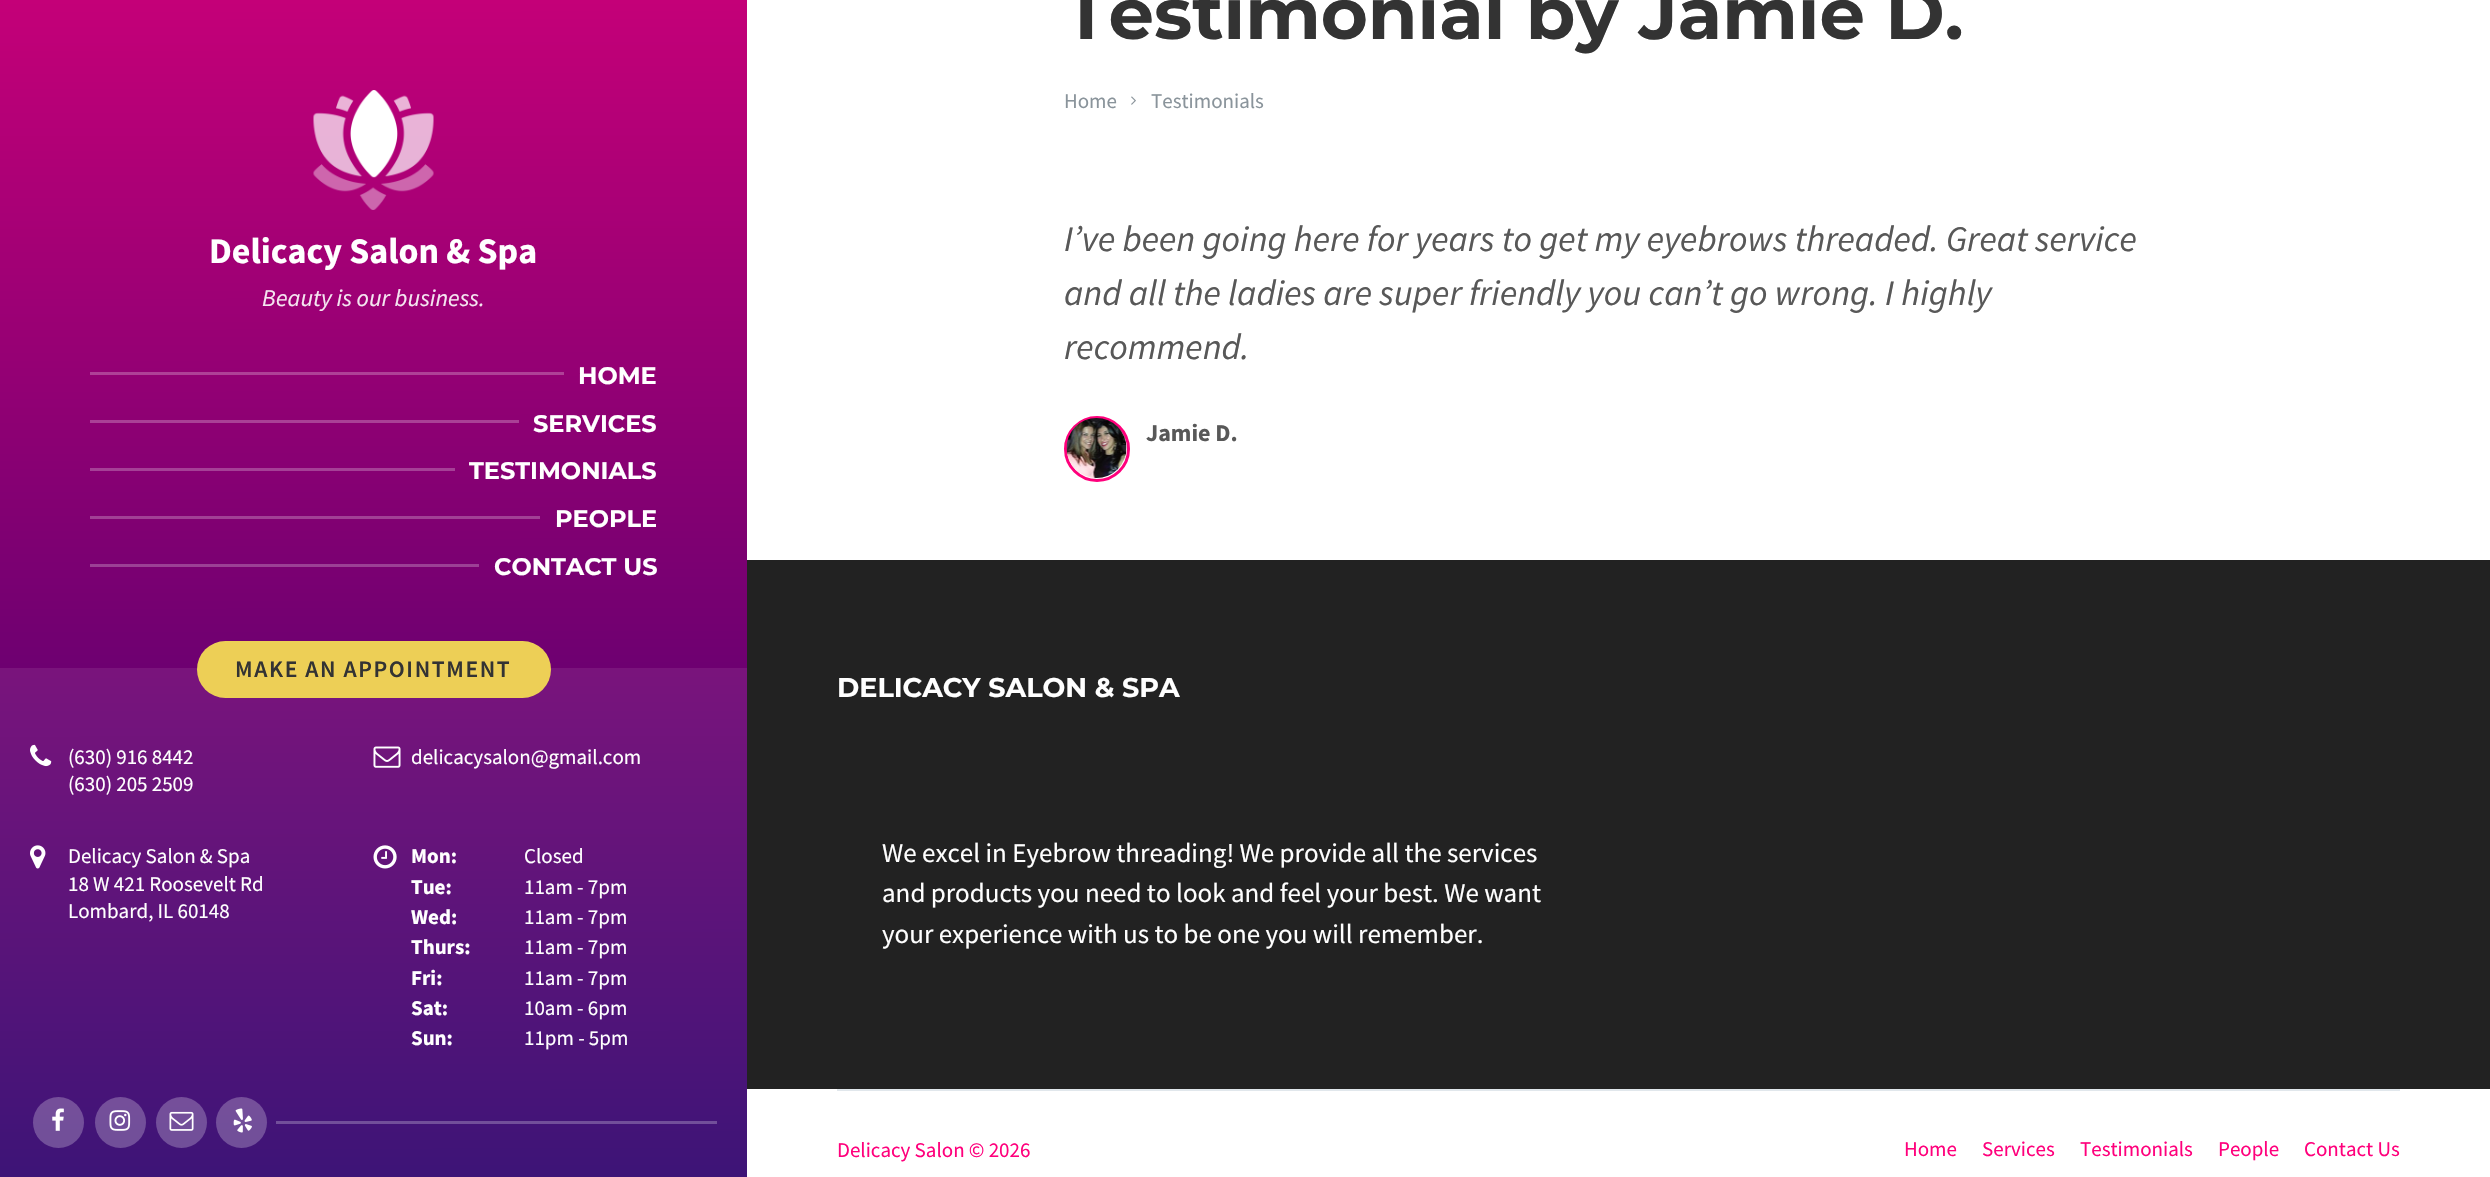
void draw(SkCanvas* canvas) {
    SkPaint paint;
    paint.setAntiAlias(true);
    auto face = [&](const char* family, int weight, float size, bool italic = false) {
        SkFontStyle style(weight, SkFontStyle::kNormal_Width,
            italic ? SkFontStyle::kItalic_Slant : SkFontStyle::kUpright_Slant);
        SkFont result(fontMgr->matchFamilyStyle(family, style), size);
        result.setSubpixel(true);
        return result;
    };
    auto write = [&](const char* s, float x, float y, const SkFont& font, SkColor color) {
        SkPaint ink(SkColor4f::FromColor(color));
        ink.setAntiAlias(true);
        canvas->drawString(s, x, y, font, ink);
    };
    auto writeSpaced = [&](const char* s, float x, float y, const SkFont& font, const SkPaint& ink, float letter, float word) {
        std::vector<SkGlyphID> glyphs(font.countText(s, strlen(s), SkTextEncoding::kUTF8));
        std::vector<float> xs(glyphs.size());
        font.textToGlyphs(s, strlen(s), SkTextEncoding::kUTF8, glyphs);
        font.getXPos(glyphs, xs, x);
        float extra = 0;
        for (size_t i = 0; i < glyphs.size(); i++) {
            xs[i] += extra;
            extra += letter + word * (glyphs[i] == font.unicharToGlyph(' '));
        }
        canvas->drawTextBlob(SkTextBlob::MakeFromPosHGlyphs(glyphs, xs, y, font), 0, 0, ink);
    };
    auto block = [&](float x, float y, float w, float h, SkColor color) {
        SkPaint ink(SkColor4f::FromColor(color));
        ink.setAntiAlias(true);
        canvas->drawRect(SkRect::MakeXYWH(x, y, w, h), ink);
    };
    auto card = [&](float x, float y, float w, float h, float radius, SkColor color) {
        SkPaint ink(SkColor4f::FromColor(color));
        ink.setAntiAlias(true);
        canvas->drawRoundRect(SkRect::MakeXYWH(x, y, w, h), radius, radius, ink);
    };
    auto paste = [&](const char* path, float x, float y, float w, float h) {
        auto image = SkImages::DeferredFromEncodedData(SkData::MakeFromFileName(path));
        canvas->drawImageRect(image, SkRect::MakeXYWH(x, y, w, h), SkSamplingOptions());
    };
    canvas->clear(SK_ColorWHITE);
    {
        const SkColor colors[] = {SkColorSetRGB(196, 0, 120), SkColorSetRGB(44, 0, 107)};
        const float stops[] = {0, 1};
        const SkPoint ends[] = {{373, 0}, {374, 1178}};
        paint.setShader(SkGradientShader::MakeLinear(ends, colors, stops, 2, SkTileMode::kClamp));
        paint.setAlpha(255);
    }
    canvas->drawRect(SkRect::MakeXYWH(0, 0, 747, 668), paint);
    {
        const SkColor colors[] = {SkColorSetRGB(201, 20, 131), SkColorSetRGB(61, 20, 119)};
        const float stops[] = {0, 1};
        const SkPoint ends[] = {{373, 0}, {374, 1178}};
        paint.setShader(SkGradientShader::MakeLinear(ends, colors, stops, 2, SkTileMode::kClamp));
        paint.setAlpha(255);
    }
    canvas->drawRect(SkRect::MakeXYWH(0, 668, 747, 509), paint);
    paste("pic1.png", 313, 90, 121, 120);
    auto kFont1 = face("Source Sans Pro", 700, 36);
    write("Delicacy Salon & Spa", 209, 263, kFont1, SK_ColorWHITE);
    auto kFont2 = face("Source Sans Pro", 400, 24, true);
    write("Beauty is our business.", 262, 306, kFont2, SkColorSetRGB(245, 230, 241));
    block(90, 372, 474, 3, SkColorSetRGB(175, 64, 151));
    auto kFont3 = face("Montserrat", 700, 24);
    write("HOME", 578, 384, kFont3, SK_ColorWHITE);
    block(90, 420, 429, 3, SkColorSetRGB(170, 64, 150));
    write("SERVICES", 533, 432, kFont3, SK_ColorWHITE);
    block(90, 468, 365, 3, SkColorSetRGB(165, 64, 150));
    write("TESTIMONIALS", 469, 479, kFont3, SK_ColorWHITE);
    block(90, 516, 450, 3, SkColorSetRGB(161, 64, 149));
    write("PEOPLE", 555, 527, kFont3, SK_ColorWHITE);
    block(90, 564, 389, 3, SkColorSetRGB(156, 64, 149));
    write("CONTACT US", 494, 575, kFont3, SK_ColorWHITE);
    card(197, 641, 354, 57, 28.5f, SkColorSetRGB(237, 207, 86));
    auto kFont4 = face("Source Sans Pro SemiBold", 600, 23.6f);
    paint.setShader(nullptr);
    paint.setColor(SkColorSetRGB(51, 51, 51));
    writeSpaced("MAKE AN APPOINTMENT", 235, 677, kFont4, paint, 1.6f, 0);
    paste("pic2.png", 30, 744, 22, 23);
    auto kFont5 = face("Source Sans Pro", 400, 21);
    write("(630) 916 8442", 68, 764, kFont5, SK_ColorWHITE);
    write("(630) 205 2509", 68, 791, kFont5, SK_ColorWHITE);
    paste("pic3.png", 373, 746, 28, 22);
    write("delicacysalon@gmail.com", 411, 764, kFont5, SK_ColorWHITE);
    paste("pic4.png", 30, 845, 16, 24);
    write("Delicacy Salon & Spa", 68, 863, kFont5, SK_ColorWHITE);
    write("18 W 421 Roosevelt Rd", 68, 891, kFont5, SK_ColorWHITE);
    write("Lombard, IL 60148", 68, 918, kFont5, SK_ColorWHITE);
    paste("pic5.png", 373, 845, 24, 24);
    auto kFont6 = face("Source Sans Pro", 700, 21);
    write("Mon:", 411, 863, kFont6, SK_ColorWHITE);
    write("Closed", 524, 863, kFont5, SK_ColorWHITE);
    write("Tue:", 411, 894, kFont6, SK_ColorWHITE);
    write("11am - 7pm", 524, 894, kFont5, SK_ColorWHITE);
    write("Wed:", 411, 924, kFont6, SK_ColorWHITE);
    write("11am - 7pm", 524, 924, kFont5, SK_ColorWHITE);
    write("Thurs:", 411, 954, kFont6, SK_ColorWHITE);
    write("11am - 7pm", 524, 954, kFont5, SK_ColorWHITE);
    write("Fri:", 411, 985, kFont6, SK_ColorWHITE);
    write("11am - 7pm", 524, 985, kFont5, SK_ColorWHITE);
    write("Sat:", 411, 1015, kFont6, SK_ColorWHITE);
    write("10am - 6pm", 524, 1015, kFont5, SK_ColorWHITE);
    write("Sun:", 411, 1045, kFont6, SK_ColorWHITE);
    write("11pm - 5pm", 524, 1045, kFont5, SK_ColorWHITE);
    paint.setColor(SkColorSetARGB(64, 255, 255, 255));
    canvas->drawCircle(58.5f, 1122.5f, 25.5f, paint);
    paste("pic6.png", 52, 1108, 12, 23);
    canvas->drawCircle(120.5f, 1122.5f, 25.5f, paint);
    paste("pic7.png", 109, 1110, 22, 21);
    canvas->drawCircle(181.5f, 1122.5f, 25.5f, paint);
    paste("pic8.png", 169, 1111, 25, 20);
    canvas->drawCircle(241.5f, 1122.5f, 25.5f, paint);
    paste("pic9.png", 233, 1108, 19, 25);
    block(276, 1121, 441, 3, SkColorSetRGB(114, 79, 154));
    auto kFont7 = face("Montserrat", 700, 72);
    write("Testimonial by Jamie D.", 1064, 39, kFont7, SkColorSetRGB(51, 51, 51));
    write("Home", 1064, 108, kFont5, SkColorSetRGB(138, 148, 155));
    paste("pic10.png", 1131, 96, 5, 9);
    write("Testimonials", 1151, 108, kFont5, SkColorSetRGB(138, 148, 155));
    auto kFont8 = face("Source Sans Pro", 400, 36, true);
    write("I’ve been going here for years to get my eyebrows threaded. Great service", 1064, 251, kFont8, SkColorSetRGB(88, 88, 88));
    write("and all the ladies are super friendly you can’t go wrong. I highly", 1064, 305, kFont8, SkColorSetRGB(88, 88, 88));
    write("recommend.", 1064, 359, kFont8, SkColorSetRGB(88, 88, 88));
    paint.setStyle(SkPaint::kStroke_Style);
    paint.setStrokeWidth(3);
    paint.setColor(SkColorSetRGB(255, 0, 124));
    canvas->drawCircle(1097, 449, 31.5f, paint);
    paste("pic11.png", 1066, 418, 61, 60);
    auto kFont9 = face("Source Sans Pro", 700, 24);
    write("Jamie D.", 1146, 441, kFont9, SkColorSetRGB(88, 88, 88));
    block(747, 560, 1743, 529, SkColorSetRGB(34, 34, 34));
    auto kFont10 = face("Montserrat", 700, 27);
    write("DELICACY SALON & SPA", 837, 697, kFont10, SK_ColorWHITE);
    auto kFont11 = face("Source Sans Pro", 400, 27);
    write("We excel in Eyebrow threading! We provide all the services", 882, 862, kFont11, SK_ColorWHITE);
    write("and products you need to look and feel your best. We want", 882, 902, kFont11, SK_ColorWHITE);
    write("your experience with us to be one you will remember.", 882, 943, kFont11, SK_ColorWHITE);
    block(837, 1089, 1563, 2, SkColorSetRGB(225, 231, 236));
    write("Delicacy Salon © 2026", 837, 1157, kFont5, SkColorSetRGB(255, 0, 124));
    write("Home", 1904, 1156, kFont5, SkColorSetRGB(255, 0, 124));
    write("Services", 1982, 1156, kFont5, SkColorSetRGB(255, 0, 124));
    write("Testimonials", 2080, 1156, kFont5, SkColorSetRGB(255, 0, 124));
    write("People", 2218, 1156, kFont5, SkColorSetRGB(255, 0, 124));
    write("Contact Us", 2304, 1156, kFont5, SkColorSetRGB(255, 0, 124));
}
